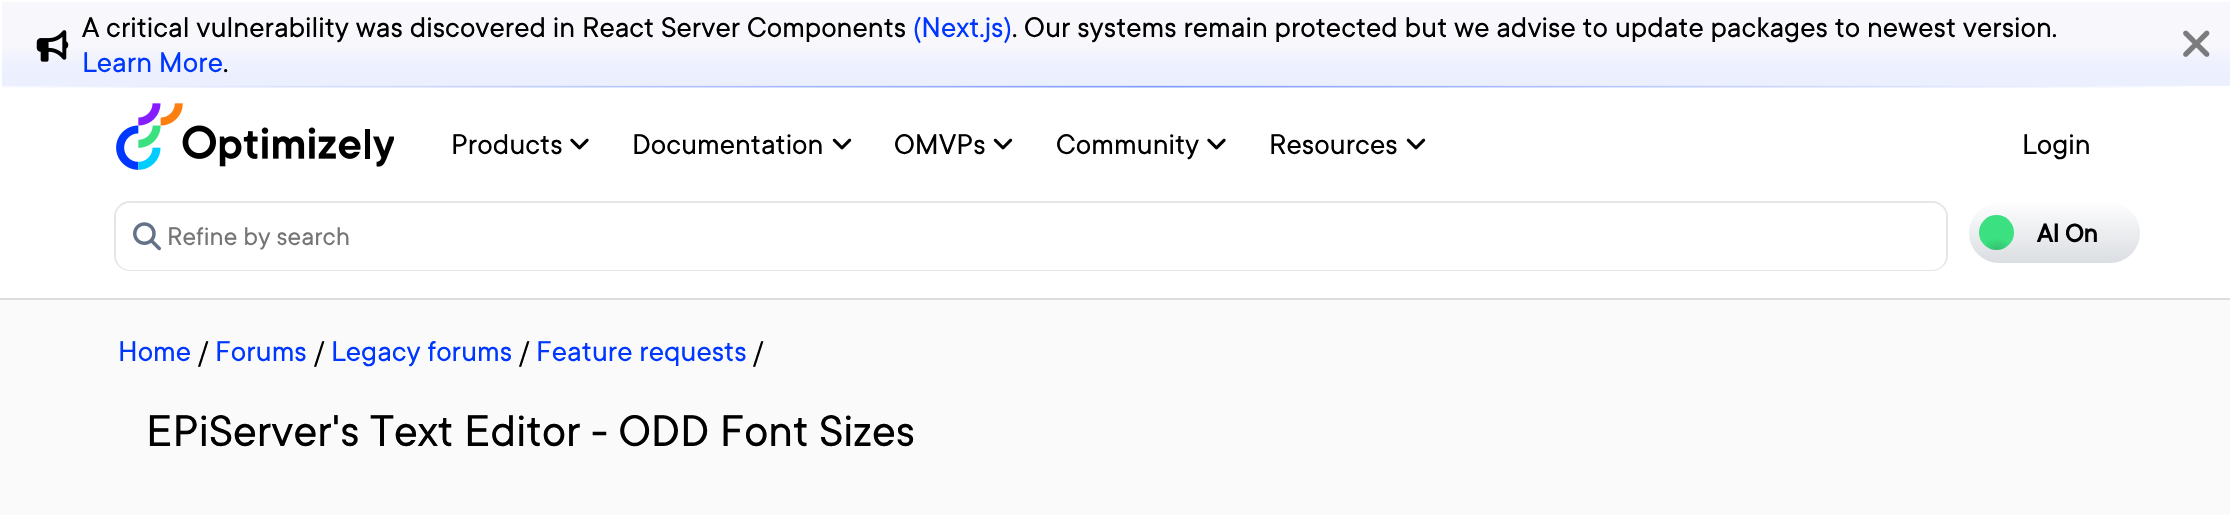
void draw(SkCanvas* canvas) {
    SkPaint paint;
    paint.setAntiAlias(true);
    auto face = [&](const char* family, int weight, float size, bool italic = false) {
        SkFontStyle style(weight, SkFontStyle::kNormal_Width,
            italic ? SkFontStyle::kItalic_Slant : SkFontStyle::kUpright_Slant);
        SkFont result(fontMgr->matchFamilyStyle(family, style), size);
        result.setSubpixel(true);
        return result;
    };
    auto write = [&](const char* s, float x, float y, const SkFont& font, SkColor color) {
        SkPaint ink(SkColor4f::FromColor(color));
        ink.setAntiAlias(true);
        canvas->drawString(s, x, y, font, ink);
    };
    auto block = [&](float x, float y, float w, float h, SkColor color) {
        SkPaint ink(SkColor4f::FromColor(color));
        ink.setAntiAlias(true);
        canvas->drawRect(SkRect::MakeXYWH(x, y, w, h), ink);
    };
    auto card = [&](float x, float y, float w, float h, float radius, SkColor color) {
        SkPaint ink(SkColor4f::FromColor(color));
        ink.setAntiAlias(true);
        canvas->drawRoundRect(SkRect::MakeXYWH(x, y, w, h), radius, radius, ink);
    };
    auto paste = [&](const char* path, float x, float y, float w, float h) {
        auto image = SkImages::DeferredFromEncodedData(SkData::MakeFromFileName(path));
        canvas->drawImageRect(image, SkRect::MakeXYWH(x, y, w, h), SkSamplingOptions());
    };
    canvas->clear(SkColorSetRGB(250, 250, 250));
    block(0, 0, 2230, 298, SK_ColorWHITE);
    paste("pic1.png", 2, 85, 2184, 3);
    {
        const SkColor colors[] = {SkColorSetRGB(248, 248, 252), SkColorSetARGB(77, 204, 215, 255)};
        const float stops[] = {0.42f, 1};
        const SkPoint ends[] = {{1116, 1.6f}, {1116, 103}};
        paint.setShader(SkGradientShader::MakeLinear(ends, colors, stops, 2, SkTileMode::kClamp));
        paint.setAlpha(255);
    }
    canvas->drawRect(SkRect::MakeXYWH(2, 2, 2228, 84), paint);
    paste("pic2.png", 36, 30, 33, 32);
    auto kFont1 = face("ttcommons", 400, 31.5f);
    write("A critical vulnerability was discovered in React Server Components", 82, 37, kFont1, SK_ColorBLACK);
    write("(Next.js)", 913, 37, kFont1, SkColorSetRGB(0, 55, 255));
    write(". Our systems remain protected but we advise to update packages to newest version.", 1012, 37, kFont1, SK_ColorBLACK);
    write("Learn More", 82, 72, kFont1, SkColorSetRGB(0, 55, 255));
    write(".", 223, 72, kFont1, SK_ColorBLACK);
    paste("pic3.png", 2183, 30, 27, 27);
    block(0, 298, 2230, 2, SkColorSetRGB(221, 221, 221));
    paste("pic4.png", 116, 103, 278, 67);
    write("Products", 451, 154, kFont1, SK_ColorBLACK);
    paste("pic5.png", 570, 138, 19, 12);
    write("Documentation", 632, 154, kFont1, SK_ColorBLACK);
    paste("pic6.png", 832, 138, 20, 12);
    write("OMVPs", 894, 154, kFont1, SK_ColorBLACK);
    paste("pic6.png", 993, 138, 20, 12);
    write("Community", 1056, 154, kFont1, SK_ColorBLACK);
    paste("pic5.png", 1207, 138, 19, 12);
    write("Resources", 1269, 154, kFont1, SK_ColorBLACK);
    paste("pic6.png", 1406, 138, 20, 12);
    write("Login", 2022, 154, kFont1, SK_ColorBLACK);
    paint.setStyle(SkPaint::kStroke_Style);
    paint.setStrokeWidth(2);
    paint.setShader(nullptr);
    paint.setColor(SkColorSetRGB(229, 229, 229));
    canvas->drawRoundRect(SkRect::MakeXYWH(115, 202, 1832, 68), 15, 15, paint);
    card(116, 203, 1830, 67, 14, SK_ColorWHITE);
    paste("pic7.png", 133, 222, 28, 29);
    auto kFont2 = face("ttcommons", 400, 28);
    write("Refine by search", 167, 245, kFont2, SkColorSetRGB(117, 117, 117));
    paint.setStyle(SkPaint::kFill_Style);
    {
        const SkColor colors[] = {SkColorSetRGB(253, 253, 254), SkColorSetRGB(218, 221, 225)};
        const float stops[] = {0, 1};
        const SkPoint ends[] = {{2055, 203}, {2055, 263}};
        paint.setShader(SkGradientShader::MakeLinear(ends, colors, stops, 2, SkTileMode::kClamp));
        paint.setAlpha(255);
    }
    canvas->drawRoundRect(SkRect::MakeXYWH(1969, 203, 171, 60), 30, 30, paint);
    {
        const SkColor colors[] = {SkColorSetRGB(47, 179, 103), SkColorSetRGB(59, 224, 129)};
        const float stops[] = {0, 0.44f};
        paint.setShader(SkGradientShader::MakeRadial({1997, 255}, 39, colors, stops, 2, SkTileMode::kClamp));
        paint.setAlpha(255);
    }
    canvas->drawCircle(1996.5f, 232.5f, 17.5f, paint);
    auto kFont3 = face("ttcommons", 700, 28);
    write("AI On", 2037, 242, kFont3, SK_ColorBLACK);
    write("Home", 118, 361, kFont1, SkColorSetRGB(0, 55, 255));
    write("/", 198, 361, kFont1, SK_ColorBLACK);
    write("Forums", 215, 361, kFont1, SkColorSetRGB(0, 55, 255));
    write("/", 314, 361, kFont1, SK_ColorBLACK);
    write("Legacy forums", 331, 361, kFont1, SkColorSetRGB(0, 55, 255));
    write("/", 519, 361, kFont1, SK_ColorBLACK);
    write("Feature requests", 536, 361, kFont1, SkColorSetRGB(0, 55, 255));
    write("/", 753, 361, kFont1, SK_ColorBLACK);
    auto kFont4 = face("ttcommons", 400, 49);
    write("EPiServer's Text Editor - ODD Font Sizes", 146, 446, kFont4, SK_ColorBLACK);
}
